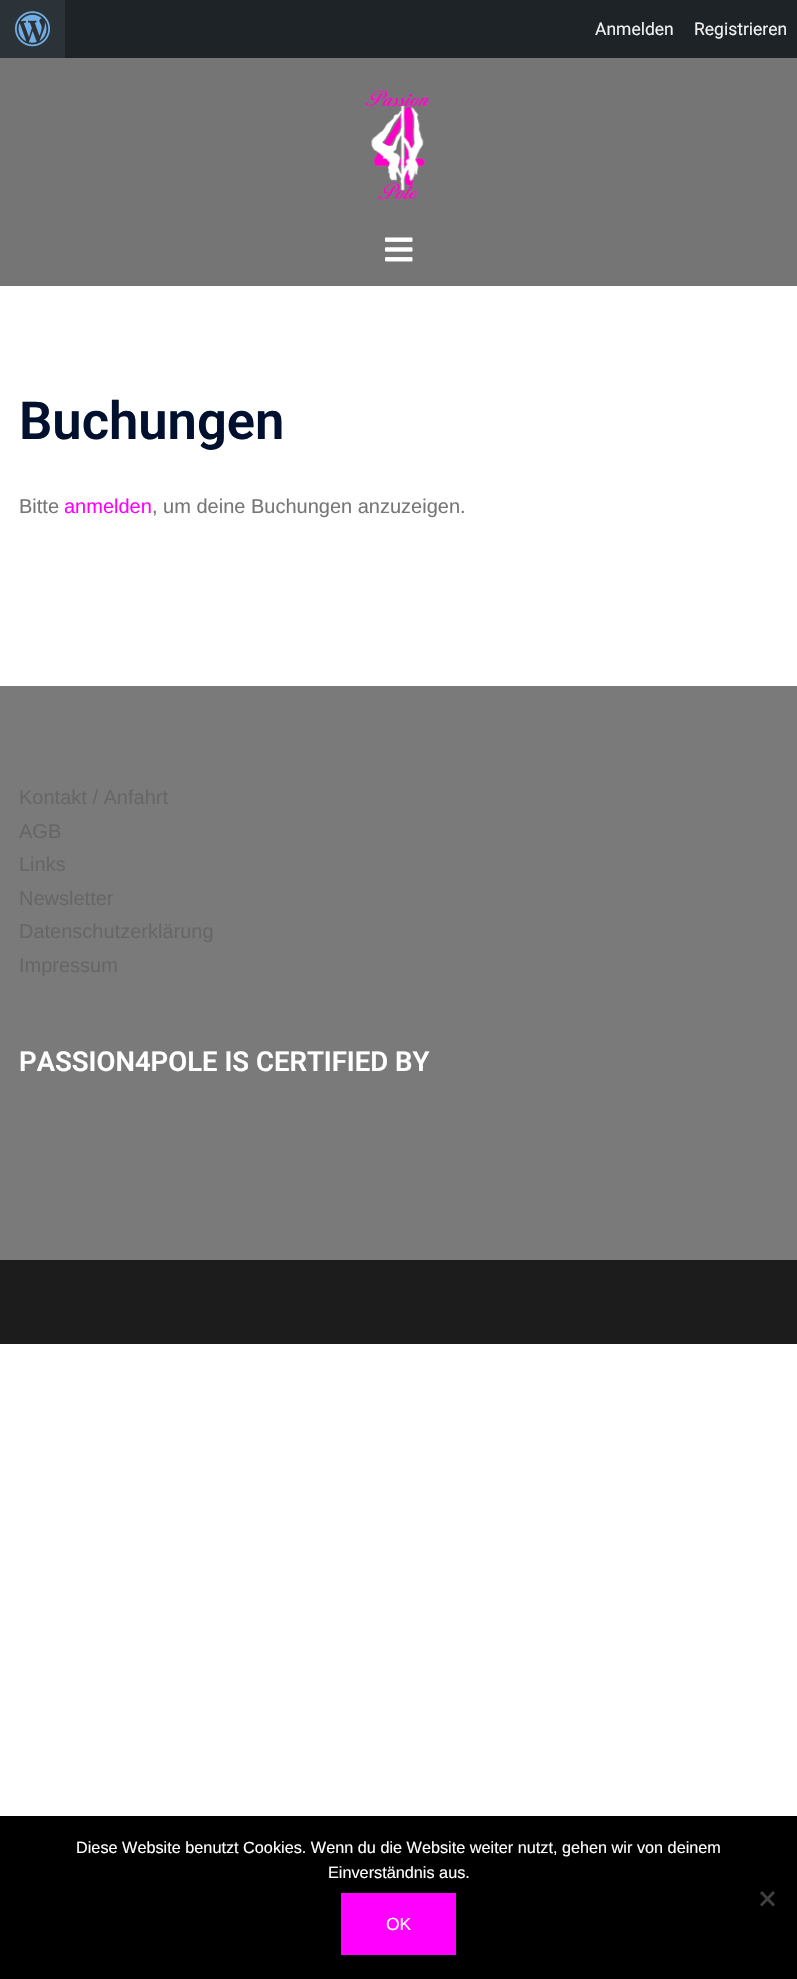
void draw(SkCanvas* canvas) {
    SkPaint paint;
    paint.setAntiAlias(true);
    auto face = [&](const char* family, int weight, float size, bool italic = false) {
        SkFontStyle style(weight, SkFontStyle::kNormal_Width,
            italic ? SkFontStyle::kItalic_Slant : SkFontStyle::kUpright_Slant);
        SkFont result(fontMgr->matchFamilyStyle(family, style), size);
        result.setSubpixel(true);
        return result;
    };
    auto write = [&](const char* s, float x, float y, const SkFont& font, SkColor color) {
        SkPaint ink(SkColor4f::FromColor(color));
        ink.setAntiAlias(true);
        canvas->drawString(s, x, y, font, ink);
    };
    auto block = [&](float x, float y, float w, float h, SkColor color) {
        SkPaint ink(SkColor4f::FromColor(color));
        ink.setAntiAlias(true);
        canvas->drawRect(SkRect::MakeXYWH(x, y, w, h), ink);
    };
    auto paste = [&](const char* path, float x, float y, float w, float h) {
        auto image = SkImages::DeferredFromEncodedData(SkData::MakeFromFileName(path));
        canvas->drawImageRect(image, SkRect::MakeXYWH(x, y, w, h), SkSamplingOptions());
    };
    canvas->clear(SK_ColorWHITE);
    block(65, 0, 732, 58, SkColorSetRGB(29, 35, 39));
    block(0, 0, 65, 58, SkColorSetRGB(44, 51, 56));
    paste("pic1.png", 15, 11, 35, 36);
    auto kFont1 = face("Roboto", 400, 17.5f);
    write("Anmelden", 595, 35, kFont1, SkColorSetRGB(240, 240, 241));
    write("Registrieren", 694, 35, kFont1, SkColorSetRGB(240, 240, 241));
    block(0, 58, 797, 228, SkColorSetRGB(117, 117, 117));
    paste("pic2.png", 365, 89, 65, 111);
    paste("pic3.png", 385, 237, 28, 25);
    auto kFont2 = face("Roboto", 600, 52.5f);
    write("Buchungen", 19, 439, kFont2, SkColorSetRGB(0, 16, 46));
    auto kFont3 = face("Liberation Sans", 400, 20);
    write("Bitte", 19, 513, kFont3, SkColorSetRGB(118, 118, 118));
    write("anmelden", 64, 513, kFont3, SkColorSetRGB(255, 0, 255));
    write(", um deine Buchungen anzuzeigen.", 152, 513, kFont3, SkColorSetRGB(118, 118, 118));
    block(0, 686, 797, 574, SkColorSetRGB(122, 122, 122));
    write("Kontakt / Anfahrt", 19, 804, kFont3, SkColorSetRGB(102, 102, 102));
    write("AGB", 19, 838, kFont3, SkColorSetRGB(102, 102, 102));
    write("Links", 19, 871, kFont3, SkColorSetRGB(102, 102, 102));
    write("Newsletter", 19, 905, kFont3, SkColorSetRGB(102, 102, 102));
    write("Datenschutzerklärung", 19, 938, kFont3, SkColorSetRGB(102, 102, 102));
    write("Impressum", 19, 972, kFont3, SkColorSetRGB(102, 102, 102));
    auto kFont4 = face("Roboto", 600, 27.5f);
    write("PASSION4POLE IS CERTIFIED BY", 19, 1071, kFont4, SK_ColorWHITE);
    block(0, 1260, 797, 84, SkColorSetRGB(28, 28, 28));
    block(0, 1816, 797, 163, SK_ColorBLACK);
    auto kFont5 = face("Liberation Sans", 400, 16.25f);
    write("Diese Website benutzt Cookies. Wenn du die Website weiter nutzt, gehen wir von deinem", 76, 1853, kFont5, SK_ColorWHITE);
    write("Einverständnis aus.", 328, 1878, kFont5, SK_ColorWHITE);
    paint.setColor(SkColorSetRGB(64, 64, 64));
    canvas->drawPath(SkPathBuilder().moveTo(773, 1891).lineTo(775, 1893).lineTo(762, 1906.5f).lineTo(760, 1904.5f).close().detach(), paint);
    canvas->drawPath(SkPathBuilder().moveTo(760, 1893).lineTo(762, 1891).lineTo(775, 1904.5f).lineTo(773, 1906.5f).close().detach(), paint);
    block(341, 1893, 115, 62, SkColorSetRGB(255, 0, 255));
    auto kFont6 = face("Liberation Sans", 400, 17.5f);
    write("OK", 386, 1930, kFont6, SK_ColorWHITE);
}
